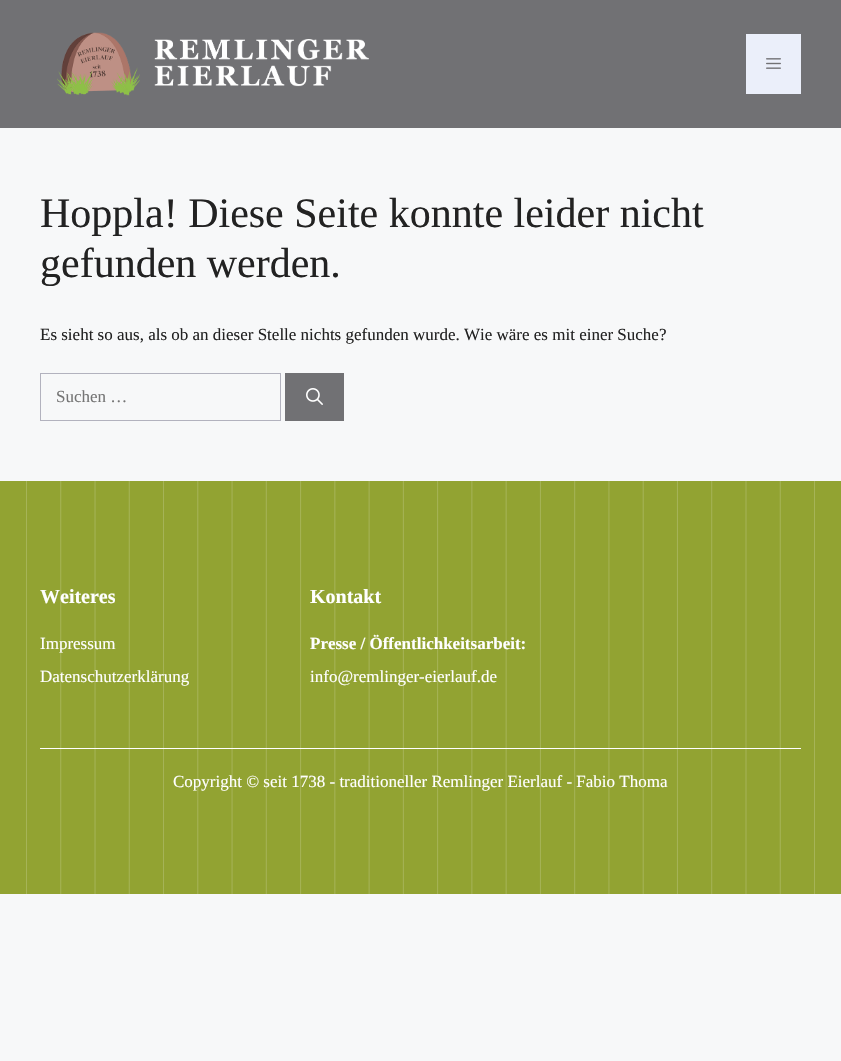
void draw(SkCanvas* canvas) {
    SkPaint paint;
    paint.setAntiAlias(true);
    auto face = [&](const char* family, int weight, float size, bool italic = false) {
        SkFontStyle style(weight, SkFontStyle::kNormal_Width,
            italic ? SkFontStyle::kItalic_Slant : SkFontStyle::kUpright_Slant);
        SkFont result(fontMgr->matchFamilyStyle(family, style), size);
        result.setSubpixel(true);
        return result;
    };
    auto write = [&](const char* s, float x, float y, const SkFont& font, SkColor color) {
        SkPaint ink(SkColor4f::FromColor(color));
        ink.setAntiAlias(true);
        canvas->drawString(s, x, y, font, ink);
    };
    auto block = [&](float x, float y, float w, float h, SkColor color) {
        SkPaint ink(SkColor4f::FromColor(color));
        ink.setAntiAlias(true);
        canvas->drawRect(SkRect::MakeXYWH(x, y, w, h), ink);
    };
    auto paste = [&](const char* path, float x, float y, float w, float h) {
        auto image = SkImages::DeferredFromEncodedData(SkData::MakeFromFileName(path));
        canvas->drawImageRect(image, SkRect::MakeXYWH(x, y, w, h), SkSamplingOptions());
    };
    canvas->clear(SkColorSetRGB(247, 248, 249));
    block(0, 0, 841, 128, SkColorSetRGB(113, 113, 116));
    paste("pic1.png", 57, 32, 312, 64);
    block(746, 34, 55, 60, SkColorSetRGB(235, 239, 250));
    paste("pic2.png", 766, 58, 15, 11);
    auto kFont1 = face("Liberation Serif", 400, 42);
    write("Hoppla! Diese Seite konnte leider nicht", 40, 227, kFont1, SkColorSetRGB(34, 34, 34));
    write("gefunden werden.", 40, 277, kFont1, SkColorSetRGB(34, 34, 34));
    auto kFont2 = face("Liberation Serif", 400, 17);
    write("Es sieht so aus, als ob an dieser Stelle nichts gefunden wurde. Wie wäre es mit einer Suche?", 40, 340, kFont2, SkColorSetRGB(34, 34, 34));
    paint.setStyle(SkPaint::kStroke_Style);
    paint.setStrokeWidth(1);
    paint.setColor(SkColorSetRGB(178, 178, 190));
    canvas->drawRect(SkRect::MakeXYWH(40.5f, 373.5f, 240, 47), paint);
    write("Suchen …", 56, 402, kFont2, SkColorSetRGB(117, 117, 117));
    block(285, 373, 59, 48, SkColorSetRGB(113, 113, 116));
    paste("pic3.png", 306, 388, 17, 17);
    block(0, 481, 841, 413, SkColorSetRGB(146, 163, 50));
    paste("pic4.png", 26, 481, 789, 413);
    auto kFont3 = face("Liberation Serif", 700, 20);
    write("Weiteres", 40, 603, kFont3, SK_ColorWHITE);
    write("Impressum", 40, 649, kFont2, SK_ColorWHITE);
    write("Datenschutzerklärung", 40, 682, kFont2, SK_ColorWHITE);
    write("Kontakt", 310, 603, kFont3, SK_ColorWHITE);
    auto kFont4 = face("Liberation Serif", 700, 17);
    write("Presse / Öffentlichkeitsarbeit:", 310, 649, kFont4, SK_ColorWHITE);
    write("info@remlinger-eierlauf.de", 310, 682, kFont2, SK_ColorWHITE);
    block(40, 748, 761, 1, SK_ColorWHITE);
    write("Copyright © seit 1738 - traditioneller Remlinger Eierlauf - Fabio Thoma", 173, 787, kFont2, SK_ColorWHITE);
}
